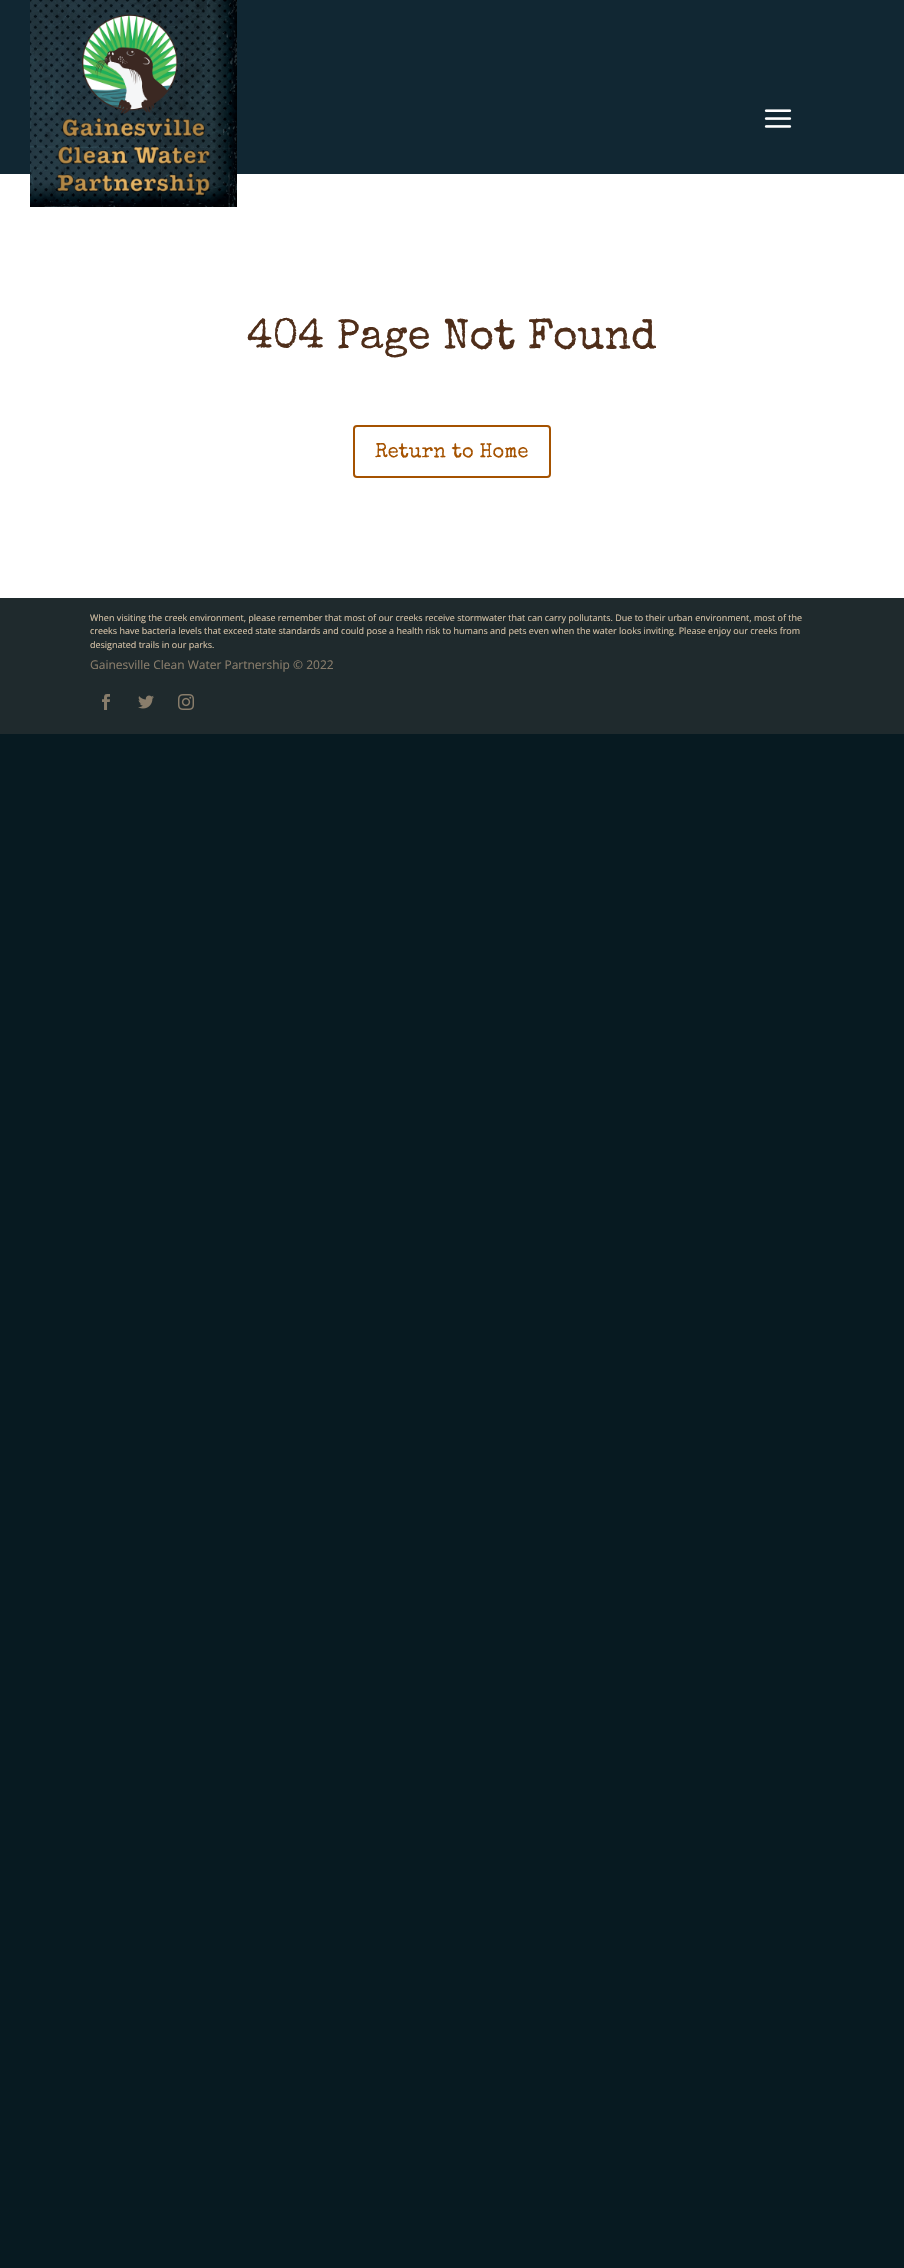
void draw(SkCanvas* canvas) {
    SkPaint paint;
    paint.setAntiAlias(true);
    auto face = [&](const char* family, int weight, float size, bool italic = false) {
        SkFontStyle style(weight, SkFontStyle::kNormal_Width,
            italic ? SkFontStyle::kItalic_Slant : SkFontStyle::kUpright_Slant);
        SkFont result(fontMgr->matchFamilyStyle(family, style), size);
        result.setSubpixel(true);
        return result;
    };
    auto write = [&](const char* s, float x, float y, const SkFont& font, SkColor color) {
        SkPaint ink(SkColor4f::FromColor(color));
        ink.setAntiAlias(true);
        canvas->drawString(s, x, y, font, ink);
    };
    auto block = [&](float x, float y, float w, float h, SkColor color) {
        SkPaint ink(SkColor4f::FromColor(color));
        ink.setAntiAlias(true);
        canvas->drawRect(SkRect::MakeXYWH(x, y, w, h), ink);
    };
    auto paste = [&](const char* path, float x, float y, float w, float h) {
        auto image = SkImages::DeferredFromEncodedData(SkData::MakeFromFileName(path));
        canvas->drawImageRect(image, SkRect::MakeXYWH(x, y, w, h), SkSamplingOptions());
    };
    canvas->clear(SkColorSetRGB(7, 26, 33));
    block(0, 0, 904, 174, SkColorSetRGB(17, 39, 51));
    block(0, 174, 904, 424, SK_ColorWHITE);
    paste("pic1.png", 30, 0, 207, 207);
    paste("pic2.png", 764, 109, 28, 19);
    auto kFont1 = face("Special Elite", 400, 42);
    write("404 Page Not Found", 247, 348, kFont1, SkColorSetRGB(79, 46, 26));
    paint.setStyle(SkPaint::kStroke_Style);
    paint.setStrokeWidth(2);
    paint.setColor(SkColorSetRGB(165, 82, 0));
    canvas->drawRoundRect(SkRect::MakeXYWH(354, 426, 196, 51), 3, 3, paint);
    auto kFont2 = face("Special Elite", 400, 20);
    write("Return to Home", 375, 457, kFont2, SkColorSetRGB(165, 82, 0));
    block(0, 598, 904, 136, SkColorSetRGB(31, 42, 45));
    auto kFont3 = face("Open Sans", 400, 9);
    write("When visiting the creek environment, please remember that most of our creeks receive stormwater that can carry pollutants. Due to their urban environment, most of the", 90, 621, kFont3, SkColorSetRGB(211, 192, 165));
    write("creeks have bacteria levels that exceed state standards and could pose a health risk to humans and pets even when the water looks inviting. Please enjoy our creeks from", 90, 634, kFont3, SkColorSetRGB(211, 192, 165));
    write("designated trails in our parks.", 90, 648, kFont3, SkColorSetRGB(211, 192, 165));
    auto kFont4 = face("Open Sans", 400, 12);
    write("Gainesville Clean Water Partnership © 2022", 90, 669, kFont4, SkColorSetRGB(137, 125, 107));
    paste("pic3.png", 102, 694, 8, 16);
    paste("pic4.png", 138, 695, 16, 14);
    paste("pic5.png", 178, 694, 16, 16);
}
